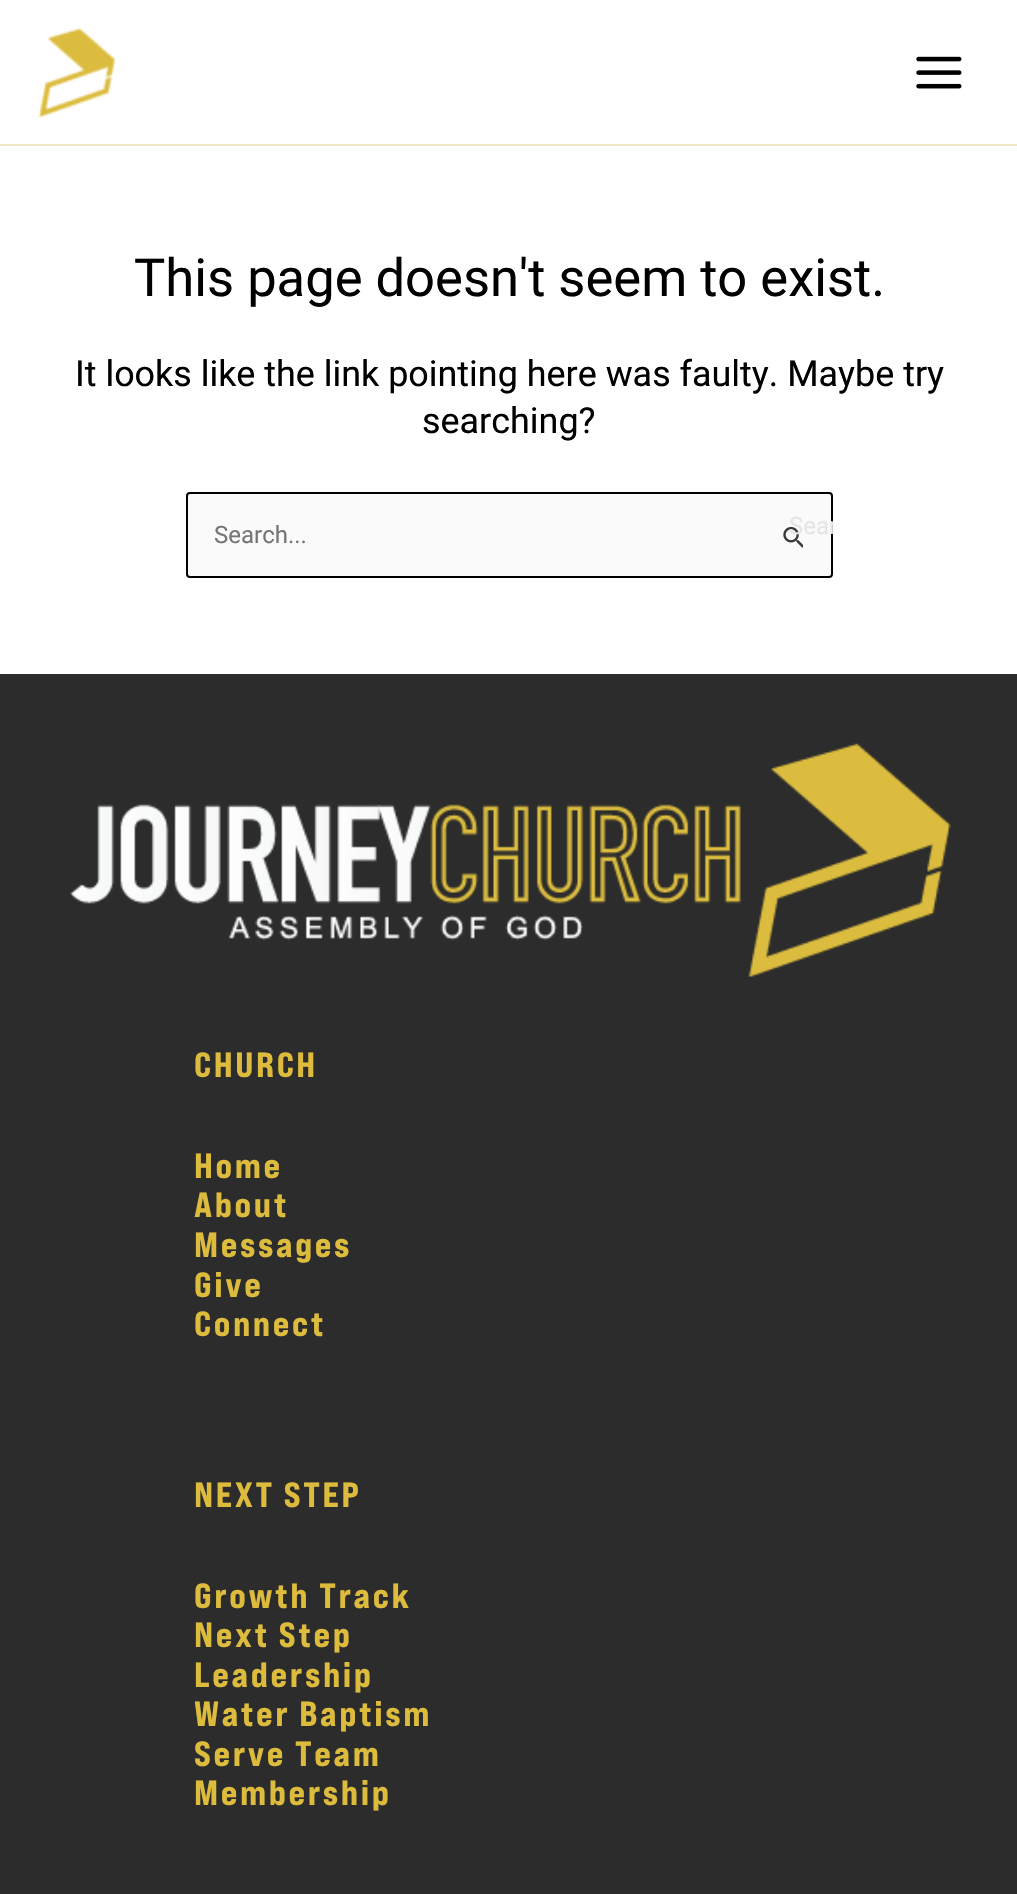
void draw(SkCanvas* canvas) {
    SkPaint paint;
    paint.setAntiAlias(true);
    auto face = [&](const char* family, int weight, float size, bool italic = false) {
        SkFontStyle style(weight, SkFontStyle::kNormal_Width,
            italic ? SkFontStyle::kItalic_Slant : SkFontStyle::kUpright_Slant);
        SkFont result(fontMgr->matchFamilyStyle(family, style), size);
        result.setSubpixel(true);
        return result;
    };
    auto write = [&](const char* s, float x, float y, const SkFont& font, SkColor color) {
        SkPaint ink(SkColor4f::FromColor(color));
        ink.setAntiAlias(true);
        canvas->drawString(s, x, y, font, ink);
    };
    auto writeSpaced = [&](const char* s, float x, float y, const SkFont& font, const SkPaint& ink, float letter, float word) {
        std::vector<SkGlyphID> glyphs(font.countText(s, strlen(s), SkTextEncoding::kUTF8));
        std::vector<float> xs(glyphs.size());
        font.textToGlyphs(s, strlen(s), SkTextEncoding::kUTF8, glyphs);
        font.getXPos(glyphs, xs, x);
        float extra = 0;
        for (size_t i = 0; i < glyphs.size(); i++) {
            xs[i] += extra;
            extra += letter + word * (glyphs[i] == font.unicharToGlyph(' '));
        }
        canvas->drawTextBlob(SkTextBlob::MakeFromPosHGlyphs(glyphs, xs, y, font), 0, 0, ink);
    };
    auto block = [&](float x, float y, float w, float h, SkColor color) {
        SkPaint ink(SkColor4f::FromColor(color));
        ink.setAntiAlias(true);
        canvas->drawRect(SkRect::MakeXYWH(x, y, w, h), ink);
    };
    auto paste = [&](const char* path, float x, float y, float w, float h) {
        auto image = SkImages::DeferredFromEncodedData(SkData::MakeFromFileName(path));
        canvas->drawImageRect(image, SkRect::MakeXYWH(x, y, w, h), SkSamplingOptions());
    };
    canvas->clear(SK_ColorWHITE);
    block(0, 144, 1017, 2, SkColorSetRGB(240, 230, 197));
    paste("pic1.png", 38, 27, 78, 92);
    paste("pic2.png", 916, 56, 46, 33);
    auto kFont1 = face("Roboto", 400, 52.5f);
    write("This page doesn't seem to exist.", 134, 296, kFont1, SK_ColorBLACK);
    auto kFont2 = face("Roboto", 400, 35.9f);
    write("It looks like the link pointing here was faulty. Maybe try", 75, 386, kFont2, SK_ColorBLACK);
    write("searching?", 422, 433, kFont2, SK_ColorBLACK);
    paint.setColor(SkColorSetRGB(250, 250, 250));
    canvas->drawRoundRect(SkRect::MakeXYWH(187, 493, 645, 84), 3, 3, paint);
    paint.setStyle(SkPaint::kStroke_Style);
    paint.setStrokeWidth(2);
    paint.setColor(SK_ColorBLACK);
    canvas->drawRoundRect(SkRect::MakeXYWH(187, 493, 645, 84), 3, 3, paint);
    auto kFont3 = face("Roboto", 400, 24);
    write("Search...", 214, 543, kFont3, SkColorSetRGB(117, 117, 117));
    paste("pic3.png", 783, 527, 20, 21);
    canvas->save();
    canvas->clipPath(SkPathBuilder().moveTo(758, 492).lineTo(829, 492).cubicTo(831, 492, 833, 494, 833, 496).lineTo(833, 558).cubicTo(833, 560, 831, 562, 829, 562).lineTo(758, 562).cubicTo(756, 562, 754, 560, 754, 558).lineTo(754, 496).cubicTo(754, 494, 756, 492, 758, 492).close().detach(), true);
    write("Sear", 789, 534, kFont3, SkColorSetRGB(229, 229, 229));
    canvas->restore();
    block(0, 674, 1017, 1220, SkColorSetRGB(44, 44, 44));
    paste("pic4.png", 69, 743, 882, 234);
    auto kFont4 = face("Bebas Neue", 800, 35);
    paint.setStyle(SkPaint::kFill_Style);
    paint.setColor(SkColorSetRGB(221, 188, 61));
    writeSpaced("CHURCH", 194, 1077, kFont4, paint, 2.6f, 0);
    writeSpaced("Home", 194, 1178, kFont4, paint, 2.6f, 0);
    writeSpaced("About", 194, 1217, kFont4, paint, 2.6f, 0);
    writeSpaced("Messages", 194, 1257, kFont4, paint, 2.6f, 0);
    writeSpaced("Give", 194, 1297, kFont4, paint, 2.6f, 0);
    writeSpaced("Connect", 194, 1336, kFont4, paint, 2.6f, 0);
    writeSpaced("NEXT STEP", 194, 1507, kFont4, paint, 2.6f, 0);
    writeSpaced("Growth Track", 194, 1608, kFont4, paint, 2.6f, 0);
    writeSpaced("Next Step", 194, 1647, kFont4, paint, 2.6f, 0);
    writeSpaced("Leadership", 194, 1687, kFont4, paint, 2.6f, 0);
    writeSpaced("Water Baptism", 194, 1726, kFont4, paint, 2.6f, 0);
    writeSpaced("Serve Team", 194, 1766, kFont4, paint, 2.6f, 0);
    writeSpaced("Membership", 194, 1805, kFont4, paint, 2.6f, 0);
}
